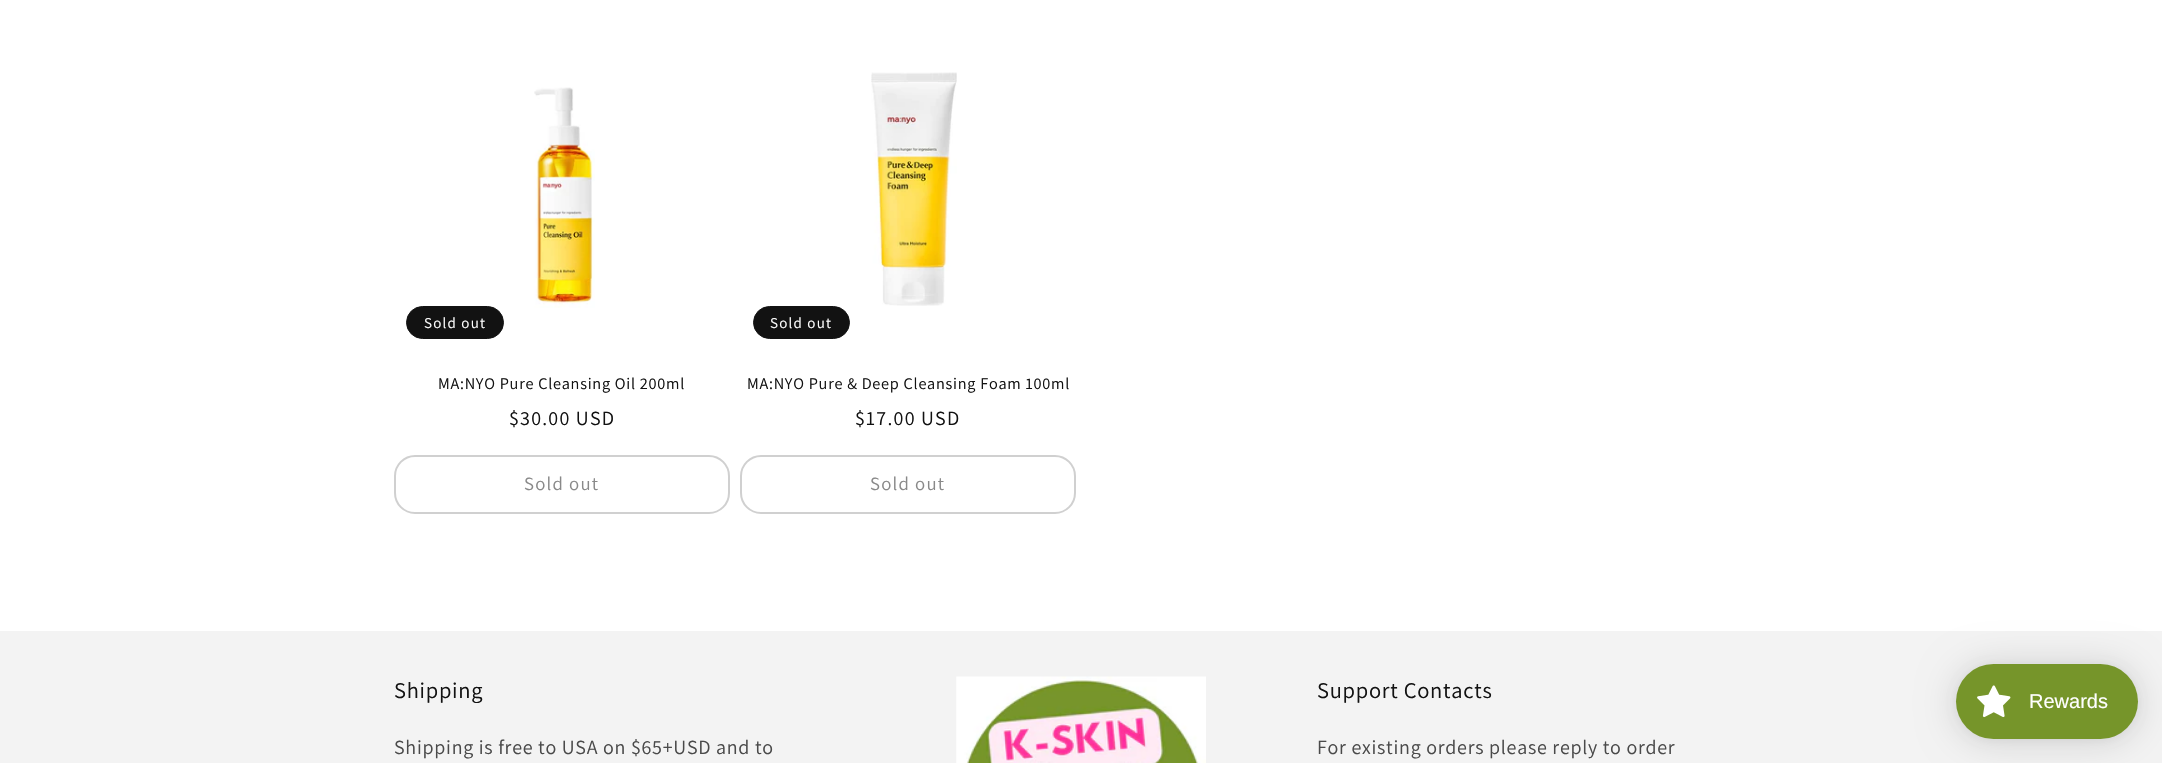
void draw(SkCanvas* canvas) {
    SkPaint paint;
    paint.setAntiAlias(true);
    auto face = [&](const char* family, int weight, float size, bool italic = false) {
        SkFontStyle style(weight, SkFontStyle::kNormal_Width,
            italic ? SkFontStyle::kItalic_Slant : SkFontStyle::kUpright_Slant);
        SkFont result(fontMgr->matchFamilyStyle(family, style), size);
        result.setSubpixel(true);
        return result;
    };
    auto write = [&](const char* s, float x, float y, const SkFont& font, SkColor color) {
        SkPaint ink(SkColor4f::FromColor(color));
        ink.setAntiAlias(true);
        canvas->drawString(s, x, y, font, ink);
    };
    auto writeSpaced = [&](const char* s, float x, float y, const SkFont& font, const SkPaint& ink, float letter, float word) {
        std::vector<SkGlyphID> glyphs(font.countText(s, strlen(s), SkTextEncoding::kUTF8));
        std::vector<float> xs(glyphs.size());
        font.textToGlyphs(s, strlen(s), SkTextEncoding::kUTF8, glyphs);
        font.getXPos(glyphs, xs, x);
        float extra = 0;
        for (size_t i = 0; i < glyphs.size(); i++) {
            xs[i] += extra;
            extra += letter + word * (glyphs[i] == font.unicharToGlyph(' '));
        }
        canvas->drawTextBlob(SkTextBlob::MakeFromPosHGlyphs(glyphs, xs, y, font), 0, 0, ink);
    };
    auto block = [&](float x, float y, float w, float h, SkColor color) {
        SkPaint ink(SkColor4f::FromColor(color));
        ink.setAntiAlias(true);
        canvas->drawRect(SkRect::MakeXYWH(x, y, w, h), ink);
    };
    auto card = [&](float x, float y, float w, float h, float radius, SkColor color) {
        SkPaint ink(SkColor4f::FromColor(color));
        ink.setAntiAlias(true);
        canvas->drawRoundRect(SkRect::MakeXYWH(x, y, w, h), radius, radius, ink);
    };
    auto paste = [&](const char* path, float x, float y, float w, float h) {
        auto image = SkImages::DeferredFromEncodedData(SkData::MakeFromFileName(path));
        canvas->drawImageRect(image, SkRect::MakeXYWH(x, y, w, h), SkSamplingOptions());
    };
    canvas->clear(SK_ColorWHITE);
    paste("pic1.png", 534, 87, 61, 221);
    paint.setColor(SkColorSetRGB(18, 18, 18));
    canvas->drawRoundRect(SkRect::MakeXYWH(406.5f, 306.5f, 97, 32), 16, 16, paint);
    paint.setStyle(SkPaint::kStroke_Style);
    paint.setStrokeWidth(1);
    canvas->drawRoundRect(SkRect::MakeXYWH(406.5f, 306.5f, 97, 32), 16, 16, paint);
    auto kFont1 = face("Assistant", 400, 15);
    paint.setStyle(SkPaint::kFill_Style);
    paint.setColor(SK_ColorWHITE);
    writeSpaced("Sold out", 424, 328, kFont1, paint, 1.25f, 0);
    auto kFont2 = face("Assistant", 400, 16.25f);
    paint.setColor(SkColorSetRGB(18, 18, 18));
    writeSpaced("MA:NYO Pure Cleansing Oil 200ml", 438, 389, kFont2, paint, 0.75f, 0);
    auto kFont3 = face("Assistant", 400, 20);
    writeSpaced("$30.00 USD", 509, 425, kFont3, paint, 1.25f, 0);
    paint.setStyle(SkPaint::kStroke_Style);
    paint.setStrokeWidth(2);
    paint.setColor(SkColorSetRGB(208, 208, 208));
    canvas->drawRoundRect(SkRect::MakeXYWH(395, 456, 334, 57), 20, 20, paint);
    auto kFont4 = face("Assistant", 400, 18.75f);
    paint.setStyle(SkPaint::kFill_Style);
    paint.setColor(SkColorSetRGB(137, 137, 137));
    writeSpaced("Sold out", 524, 490, kFont4, paint, 1.25f, 0);
    paste("pic2.png", 871, 72, 86, 234);
    paint.setColor(SkColorSetRGB(18, 18, 18));
    canvas->drawRoundRect(SkRect::MakeXYWH(753.5f, 306.5f, 96, 32), 16, 16, paint);
    paint.setStyle(SkPaint::kStroke_Style);
    paint.setStrokeWidth(1);
    canvas->drawRoundRect(SkRect::MakeXYWH(753.5f, 306.5f, 96, 32), 16, 16, paint);
    paint.setStyle(SkPaint::kFill_Style);
    paint.setColor(SK_ColorWHITE);
    writeSpaced("Sold out", 770, 328, kFont1, paint, 1.25f, 0);
    paint.setColor(SkColorSetRGB(18, 18, 18));
    writeSpaced("MA:NYO Pure & Deep Cleansing Foam 100ml", 747, 389, kFont2, paint, 0.75f, 0);
    writeSpaced("$17.00 USD", 855, 425, kFont3, paint, 1.25f, 0);
    paint.setStyle(SkPaint::kStroke_Style);
    paint.setStrokeWidth(2);
    paint.setColor(SkColorSetRGB(208, 208, 208));
    canvas->drawRoundRect(SkRect::MakeXYWH(741, 456, 334, 57), 20, 20, paint);
    paint.setStyle(SkPaint::kFill_Style);
    paint.setColor(SkColorSetRGB(137, 137, 137));
    writeSpaced("Sold out", 870, 490, kFont4, paint, 1.25f, 0);
    block(0, 631, 2162, 132, SkColorSetRGB(243, 243, 243));
    auto kFont5 = face("Assistant", 400, 22.5f);
    paint.setColor(SkColorSetRGB(18, 18, 18));
    writeSpaced("Shipping", 394, 698, kFont5, paint, 0.75f, 0);
    paint.setColor(SkColorSetRGB(74, 74, 74));
    writeSpaced("Shipping is free to USA on $65+USD and to", 394, 754, kFont3, paint, 0.75f, 0);
    paste("pic3.png", 956, 676, 250, 87);
    paint.setColor(SkColorSetRGB(18, 18, 18));
    writeSpaced("Support Contacts", 1317, 698, kFont5, paint, 0.75f, 0);
    paint.setColor(SkColorSetRGB(74, 74, 74));
    writeSpaced("For existing orders please reply to order", 1317, 754, kFont3, paint, 0.75f, 0);
    paint.setColor(SkColorSetARGB(38, 0, 0, 0));
    paint.setMaskFilter(SkMaskFilter::MakeBlur(kNormal_SkBlurStyle, 19));
    canvas->drawRoundRect(SkRect::MakeXYWH(1956, 666, 182, 75), 37.5f, 37.5f, paint);
    paint.setMaskFilter(nullptr);
    paint.setColor(SkColorSetARGB(13, 0, 0, 0));
    paint.setMaskFilter(SkMaskFilter::MakeBlur(kNormal_SkBlurStyle, 4));
    canvas->drawRoundRect(SkRect::MakeXYWH(1956, 665, 182, 75), 37.5f, 37.5f, paint);
    paint.setMaskFilter(nullptr);
    card(1956, 664, 182, 75, 37.5f, SkColorSetRGB(118, 149, 42));
    paste("pic4.png", 1977, 685, 34, 33);
    auto kFont6 = face("Liberation Sans", 400, 20);
    write("Rewards", 2029, 708, kFont6, SK_ColorWHITE);
}
